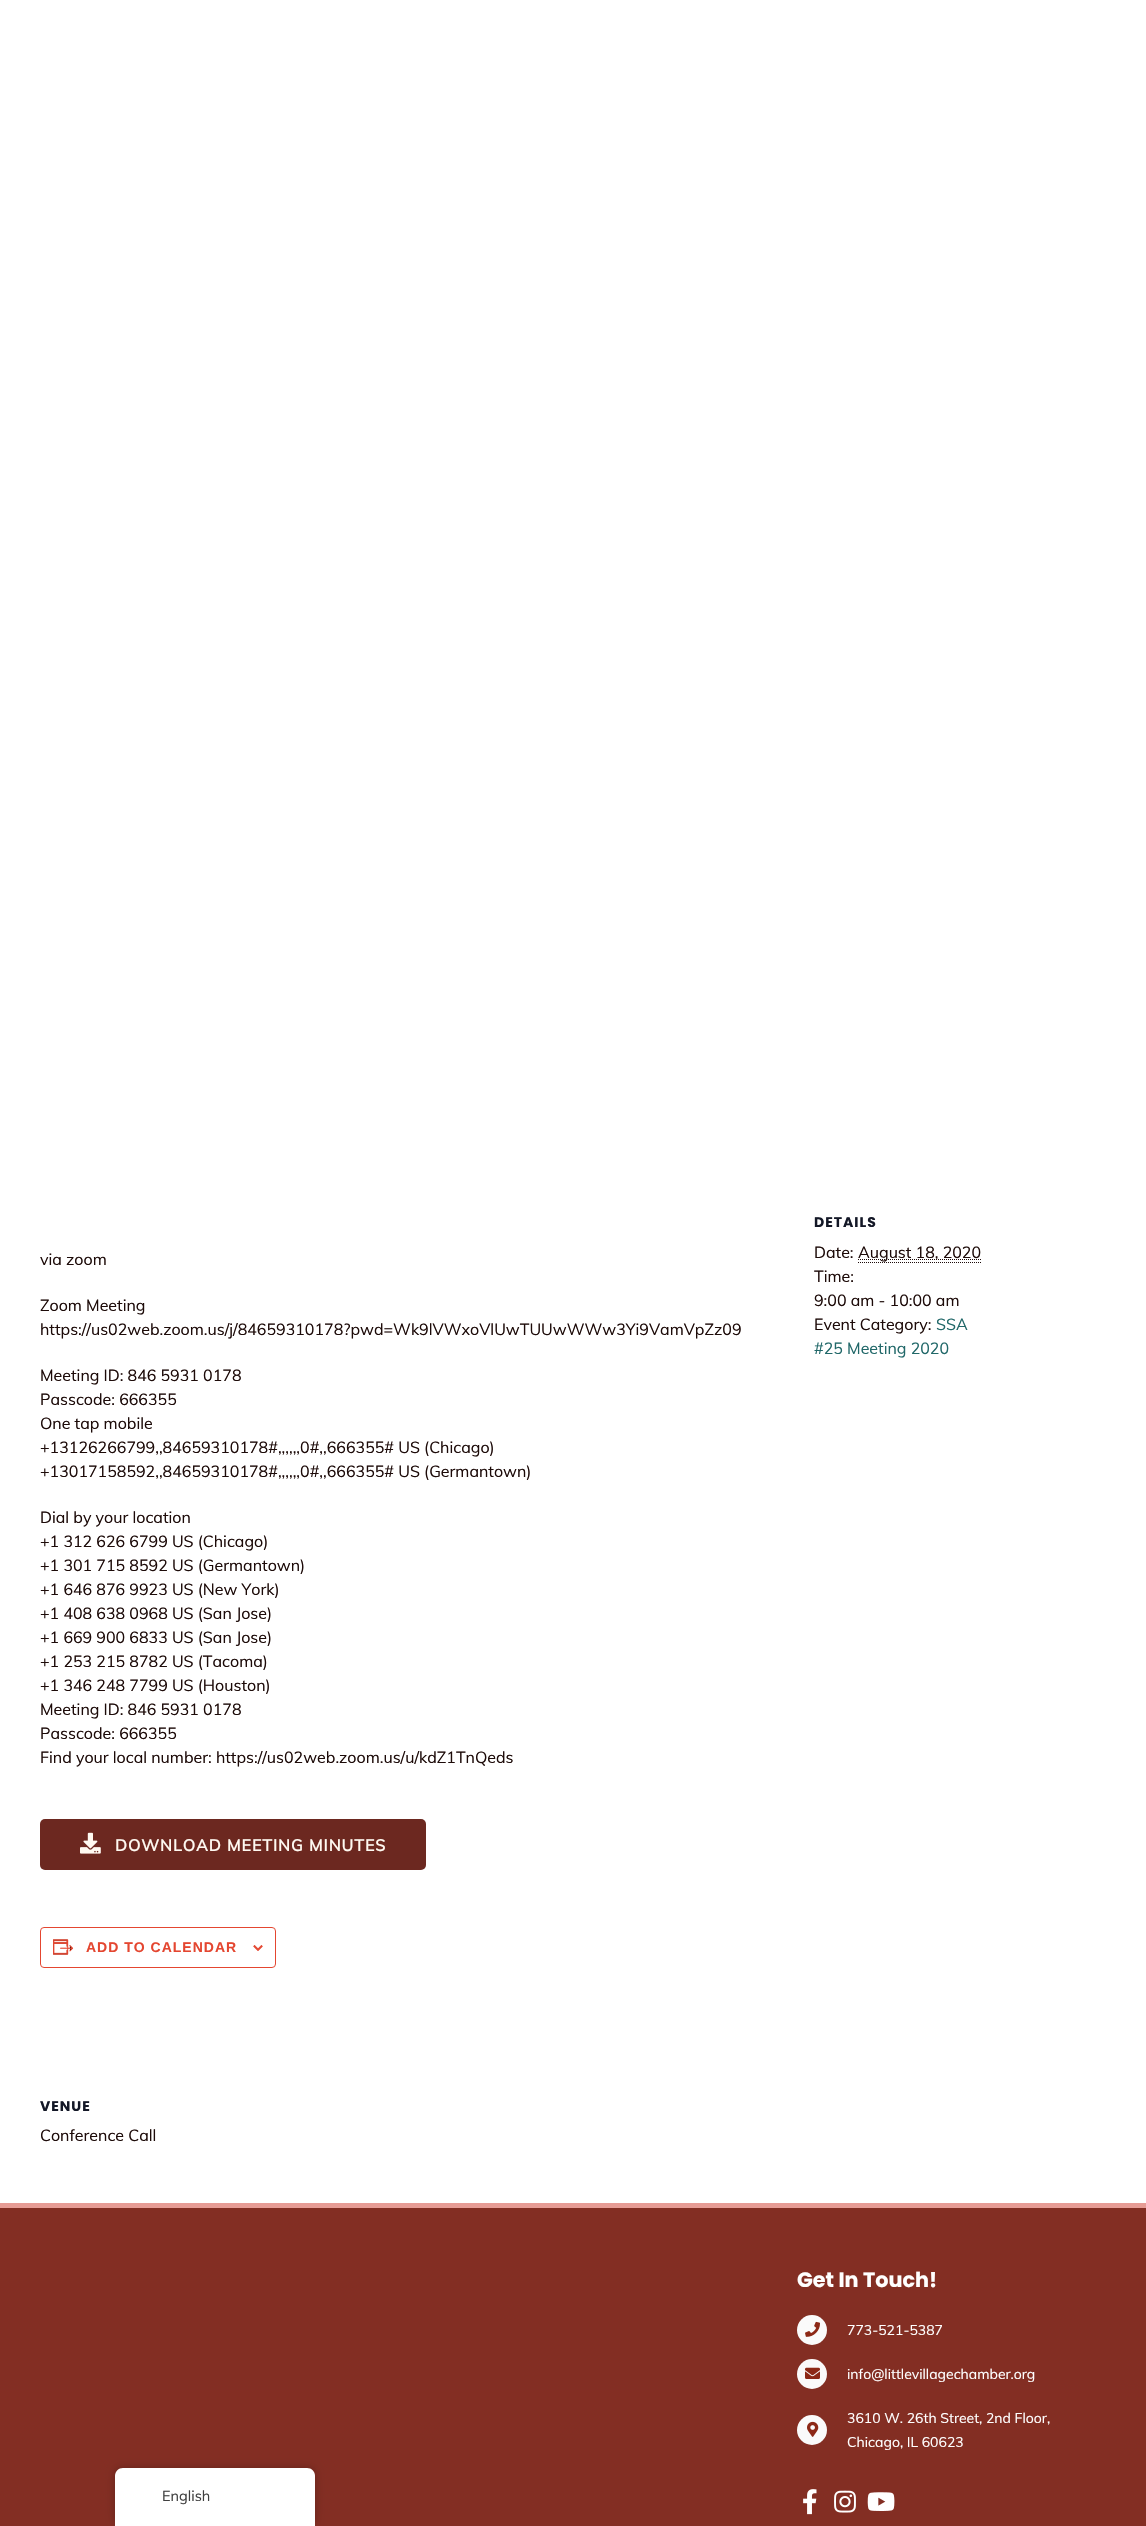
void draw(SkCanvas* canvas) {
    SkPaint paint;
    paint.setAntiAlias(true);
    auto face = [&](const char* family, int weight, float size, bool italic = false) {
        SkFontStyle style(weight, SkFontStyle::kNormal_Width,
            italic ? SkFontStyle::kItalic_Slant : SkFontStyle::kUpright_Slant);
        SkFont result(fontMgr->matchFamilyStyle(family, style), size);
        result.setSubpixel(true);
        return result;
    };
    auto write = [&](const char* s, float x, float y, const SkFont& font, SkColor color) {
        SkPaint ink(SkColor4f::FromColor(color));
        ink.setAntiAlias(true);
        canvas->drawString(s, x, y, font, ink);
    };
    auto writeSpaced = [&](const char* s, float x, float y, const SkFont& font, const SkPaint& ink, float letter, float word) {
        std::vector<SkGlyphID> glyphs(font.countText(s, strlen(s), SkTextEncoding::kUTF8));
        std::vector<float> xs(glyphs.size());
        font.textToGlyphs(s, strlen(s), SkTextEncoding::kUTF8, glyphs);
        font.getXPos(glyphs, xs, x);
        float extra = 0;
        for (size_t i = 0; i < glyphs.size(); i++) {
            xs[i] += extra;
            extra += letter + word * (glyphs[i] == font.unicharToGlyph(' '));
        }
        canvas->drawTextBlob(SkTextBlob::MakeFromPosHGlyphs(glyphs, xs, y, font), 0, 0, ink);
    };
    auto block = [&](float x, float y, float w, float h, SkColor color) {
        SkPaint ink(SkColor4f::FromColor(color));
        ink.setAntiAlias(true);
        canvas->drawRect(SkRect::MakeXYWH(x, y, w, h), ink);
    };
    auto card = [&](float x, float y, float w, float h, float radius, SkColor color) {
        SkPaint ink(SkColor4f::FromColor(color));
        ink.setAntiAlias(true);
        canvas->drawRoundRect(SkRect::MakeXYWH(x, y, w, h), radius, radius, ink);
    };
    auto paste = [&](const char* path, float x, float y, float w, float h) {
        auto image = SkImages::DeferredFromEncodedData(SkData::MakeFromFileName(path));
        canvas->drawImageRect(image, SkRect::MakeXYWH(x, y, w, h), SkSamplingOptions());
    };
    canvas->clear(SK_ColorWHITE);
    auto kFont1 = face("Muli", 400, 16);
    write("via zoom", 40, 1265, kFont1, SkColorSetRGB(29, 11, 9));
    write("Zoom Meeting", 40, 1311, kFont1, SkColorSetRGB(29, 11, 9));
    write("https://us02web.zoom.us/j/84659310178?pwd=Wk9lVWxoVlUwTUUwWWw3Yi9VamVpZz09", 40, 1335, kFont1, SkColorSetRGB(29, 11, 9));
    write("Meeting ID: 846 5931 0178", 40, 1381, kFont1, SkColorSetRGB(29, 11, 9));
    write("Passcode: 666355", 40, 1405, kFont1, SkColorSetRGB(29, 11, 9));
    write("One tap mobile", 40, 1429, kFont1, SkColorSetRGB(29, 11, 9));
    write("+13126266799,,84659310178#,,,,,,0#,,666355# US (Chicago)", 40, 1453, kFont1, SkColorSetRGB(29, 11, 9));
    write("+13017158592,,84659310178#,,,,,,0#,,666355# US (Germantown)", 40, 1477, kFont1, SkColorSetRGB(29, 11, 9));
    write("Dial by your location", 40, 1523, kFont1, SkColorSetRGB(29, 11, 9));
    write("+1 312 626 6799 US (Chicago)", 40, 1547, kFont1, SkColorSetRGB(29, 11, 9));
    write("+1 301 715 8592 US (Germantown)", 40, 1571, kFont1, SkColorSetRGB(29, 11, 9));
    write("+1 646 876 9923 US (New York)", 40, 1595, kFont1, SkColorSetRGB(29, 11, 9));
    write("+1 408 638 0968 US (San Jose)", 40, 1619, kFont1, SkColorSetRGB(29, 11, 9));
    write("+1 669 900 6833 US (San Jose)", 40, 1643, kFont1, SkColorSetRGB(29, 11, 9));
    write("+1 253 215 8782 US (Tacoma)", 40, 1667, kFont1, SkColorSetRGB(29, 11, 9));
    write("+1 346 248 7799 US (Houston)", 40, 1691, kFont1, SkColorSetRGB(29, 11, 9));
    write("Meeting ID: 846 5931 0178", 40, 1715, kFont1, SkColorSetRGB(29, 11, 9));
    write("Passcode: 666355", 40, 1739, kFont1, SkColorSetRGB(29, 11, 9));
    write("Find your local number: https://us02web.zoom.us/u/kdZ1TnQeds", 40, 1763, kFont1, SkColorSetRGB(29, 11, 9));
    card(40, 1819, 386, 51, 5, SkColorSetRGB(108, 40, 32));
    paste("pic1.png", 80, 1832, 21, 22);
    auto kFont2 = face("Muli", 700, 16);
    paint.setColor(SkColorSetRGB(255, 249, 241));
    writeSpaced("DOWNLOAD MEETING MINUTES", 115, 1851, kFont2, paint, 1, 0);
    paint.setStyle(SkPaint::kStroke_Style);
    paint.setStrokeWidth(1);
    paint.setColor(SkColorSetRGB(228, 70, 48));
    canvas->drawRoundRect(SkRect::MakeXYWH(40.5f, 1927.5f, 235, 40), 3.5f, 3.5f, paint);
    paste("pic2.png", 53, 1939, 21, 16);
    auto kFont3 = face("Liberation Sans", 700, 14);
    paint.setStyle(SkPaint::kFill_Style);
    writeSpaced("ADD TO CALENDAR", 86, 1952, kFont3, paint, 1, 0);
    paste("pic3.png", 253, 1945, 10, 6);
    auto kFont4 = face("Poppins", 700, 14);
    paint.setColor(SkColorSetRGB(20, 24, 39));
    writeSpaced("DETAILS", 814, 1227, kFont4, paint, 1, 0);
    write("Date:", 814, 1258, kFont1, SkColorSetRGB(29, 11, 9));
    paint.setStyle(SkPaint::kStroke_Style);
    paint.setColor(SkColorSetRGB(29, 11, 9));
    paint.setPathEffect(SkDashPathEffect::Make({{1, 1}}, 0));
    canvas->drawPath(SkPathBuilder().moveTo(858, 1259.5f).lineTo(981, 1259.5f).detach(), paint);
    paint.setPathEffect(nullptr);
    write("August 18, 2020", 858, 1258, kFont1, SkColorSetRGB(29, 11, 9));
    paint.setPathEffect(SkDashPathEffect::Make({{1, 1}}, 0));
    canvas->drawPath(SkPathBuilder().moveTo(858, 1262.5f).lineTo(981, 1262.5f).detach(), paint);
    paint.setPathEffect(nullptr);
    write("Time:", 814, 1282, kFont1, SkColorSetRGB(29, 11, 9));
    write("9:00 am - 10:00 am", 814, 1306, kFont1, SkColorSetRGB(29, 11, 9));
    write("Event Category:", 814, 1330, kFont1, SkColorSetRGB(29, 11, 9));
    write("SSA", 936, 1330, kFont1, SkColorSetRGB(33, 104, 105));
    write("#25 Meeting 2020", 814, 1354, kFont1, SkColorSetRGB(33, 104, 105));
    paint.setStyle(SkPaint::kFill_Style);
    paint.setColor(SkColorSetRGB(20, 24, 39));
    writeSpaced("VENUE", 40, 2111, kFont4, paint, 1, 0);
    write("Conference Call", 40, 2141, kFont1, SkColorSetRGB(29, 11, 9));
    block(0, 2203, 1146, 5, SkColorSetRGB(230, 156, 149));
    block(0, 2208, 1146, 318, SkColorSetRGB(131, 46, 35));
    auto kFont5 = face("Poppins", 700, 20.75f);
    write("Get In Touch!", 797, 2287, kFont5, SK_ColorWHITE);
    paint.setColor(SkColorSetRGB(250, 250, 250));
    canvas->drawCircle(812, 2330, 15, paint);
    paste("pic4.png", 805, 2321, 15, 16);
    auto kFont6 = face("Muli", 400, 14);
    write("773-521-5387", 847, 2335, kFont6, SK_ColorWHITE);
    canvas->drawCircle(812, 2374, 15, paint);
    paste("pic5.png", 805, 2367, 15, 12);
    write("info@littlevillagechamber.org", 847, 2379, kFont6, SK_ColorWHITE);
    canvas->drawCircle(812, 2430, 15, paint);
    paste("pic6.png", 807, 2421, 12, 16);
    write("3610 W. 26th Street, 2nd Floor,", 847, 2423, kFont6, SK_ColorWHITE);
    write("Chicago, IL 60623", 847, 2447, kFont6, SK_ColorWHITE);
    paste("pic7.png", 803, 2489, 14, 26);
    paste("pic8.png", 834, 2490, 22, 23);
    paste("pic9.png", 867, 2492, 28, 19);
    paint.setColor(SkColorSetARGB(64, 0, 0, 0));
    paint.setMaskFilter(SkMaskFilter::MakeBlur(kNormal_SkBlurStyle, 4));
    canvas->drawRoundRect(SkRect::MakeXYWH(115, 2468, 200, 58), 8, 8, paint);
    paint.setMaskFilter(nullptr);
    paint.setColor(SK_ColorWHITE);
    canvas->drawPath(SkPathBuilder().moveTo(123, 2468).lineTo(307, 2468).cubicTo(311.5f, 2468, 315, 2471.5f, 315, 2476).lineTo(315, 2526).lineTo(115, 2526).lineTo(115, 2476).cubicTo(115, 2471.5f, 118.5f, 2468, 123, 2468).close().detach(), paint);
    auto kFont7 = face("Muli", 400, 14.5f);
    write("English", 162, 2501, kFont7, SkColorSetRGB(64, 64, 64));
}
